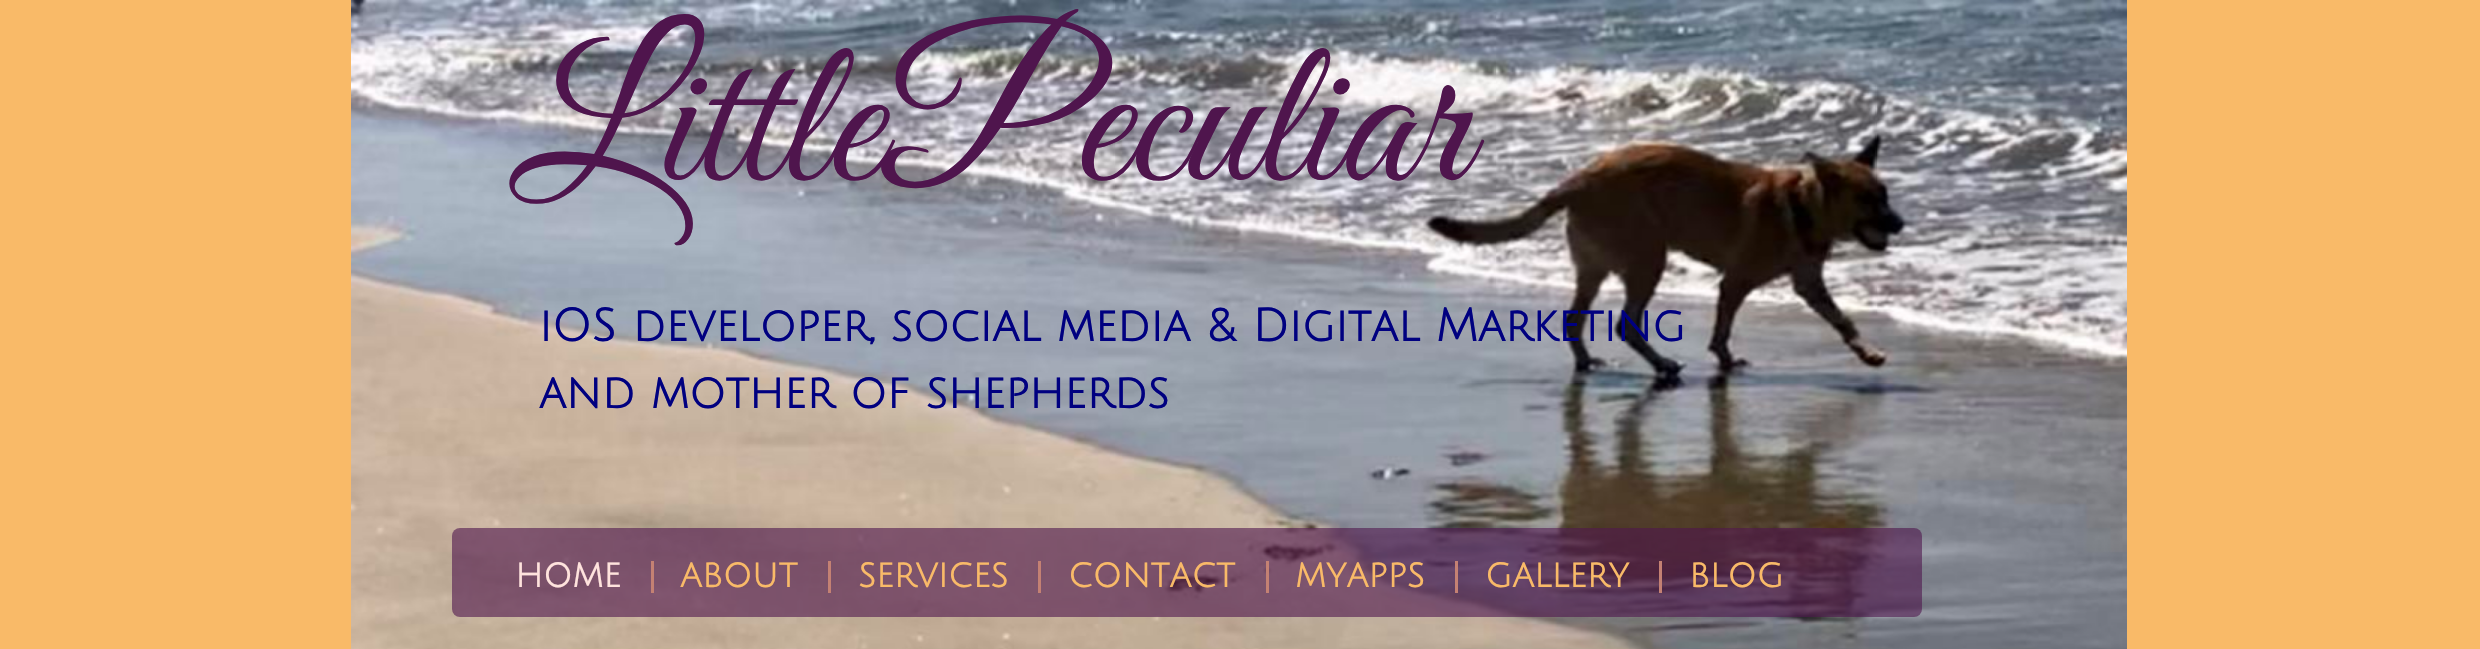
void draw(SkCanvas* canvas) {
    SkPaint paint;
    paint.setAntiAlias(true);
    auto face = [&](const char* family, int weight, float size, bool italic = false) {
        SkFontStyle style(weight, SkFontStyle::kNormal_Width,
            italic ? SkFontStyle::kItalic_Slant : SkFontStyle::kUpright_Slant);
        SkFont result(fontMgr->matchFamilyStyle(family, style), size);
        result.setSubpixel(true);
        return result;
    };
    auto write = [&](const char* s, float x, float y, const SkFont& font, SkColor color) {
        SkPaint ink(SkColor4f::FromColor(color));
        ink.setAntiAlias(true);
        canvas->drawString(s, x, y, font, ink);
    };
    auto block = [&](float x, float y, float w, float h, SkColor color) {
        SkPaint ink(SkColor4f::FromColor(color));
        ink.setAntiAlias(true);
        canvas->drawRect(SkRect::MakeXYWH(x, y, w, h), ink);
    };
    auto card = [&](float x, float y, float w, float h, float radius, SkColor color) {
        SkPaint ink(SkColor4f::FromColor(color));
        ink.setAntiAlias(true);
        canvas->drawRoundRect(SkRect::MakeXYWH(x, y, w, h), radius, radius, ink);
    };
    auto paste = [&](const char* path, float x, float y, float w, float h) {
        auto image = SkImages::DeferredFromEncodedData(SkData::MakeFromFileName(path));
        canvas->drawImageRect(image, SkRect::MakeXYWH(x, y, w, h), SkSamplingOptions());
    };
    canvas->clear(SkColorSetRGB(249, 186, 104));
    paste("pic1.png", 351, 0, 1776, 649);
    auto kFont1 = face("Great Vibes", 400, 210);
    write("LittlePeculiar", 510, 180, kFont1, SkColorSetRGB(79, 21, 77));
    auto kFont2 = face("Julius Sans One", 700, 45);
    write("iOS developer, social media & Digital Marketing", 539, 341, kFont2, SkColorSetRGB(0, 0, 128));
    write("and mother of shepherds", 539, 408, kFont2, SkColorSetRGB(0, 0, 128));
    card(452, 528, 1470, 89, 8, SkColorSetARGB(153, 79, 21, 77));
    auto kFont3 = face("Julius Sans One", 700, 33);
    write("HOME", 515, 587, kFont3, SkColorSetRGB(255, 227, 221));
    block(651, 561, 3, 32, SkColorSetRGB(196, 129, 115));
    write("ABOUT", 680, 587, kFont3, SkColorSetRGB(249, 186, 104));
    block(828, 561, 3, 32, SkColorSetRGB(196, 129, 115));
    write("SERVICES", 858, 587, kFont3, SkColorSetRGB(249, 186, 104));
    block(1038, 561, 3, 32, SkColorSetRGB(196, 129, 115));
    write("CONTACT", 1068, 587, kFont3, SkColorSetRGB(249, 186, 104));
    block(1266, 561, 3, 32, SkColorSetRGB(196, 129, 115));
    write("MYAPPS", 1295, 587, kFont3, SkColorSetRGB(249, 186, 104));
    block(1455, 561, 3, 32, SkColorSetRGB(196, 129, 115));
    write("GALLERY", 1485, 587, kFont3, SkColorSetRGB(249, 186, 104));
    block(1659, 561, 3, 32, SkColorSetRGB(196, 129, 115));
    write("BLOG", 1689, 587, kFont3, SkColorSetRGB(249, 186, 104));
}
